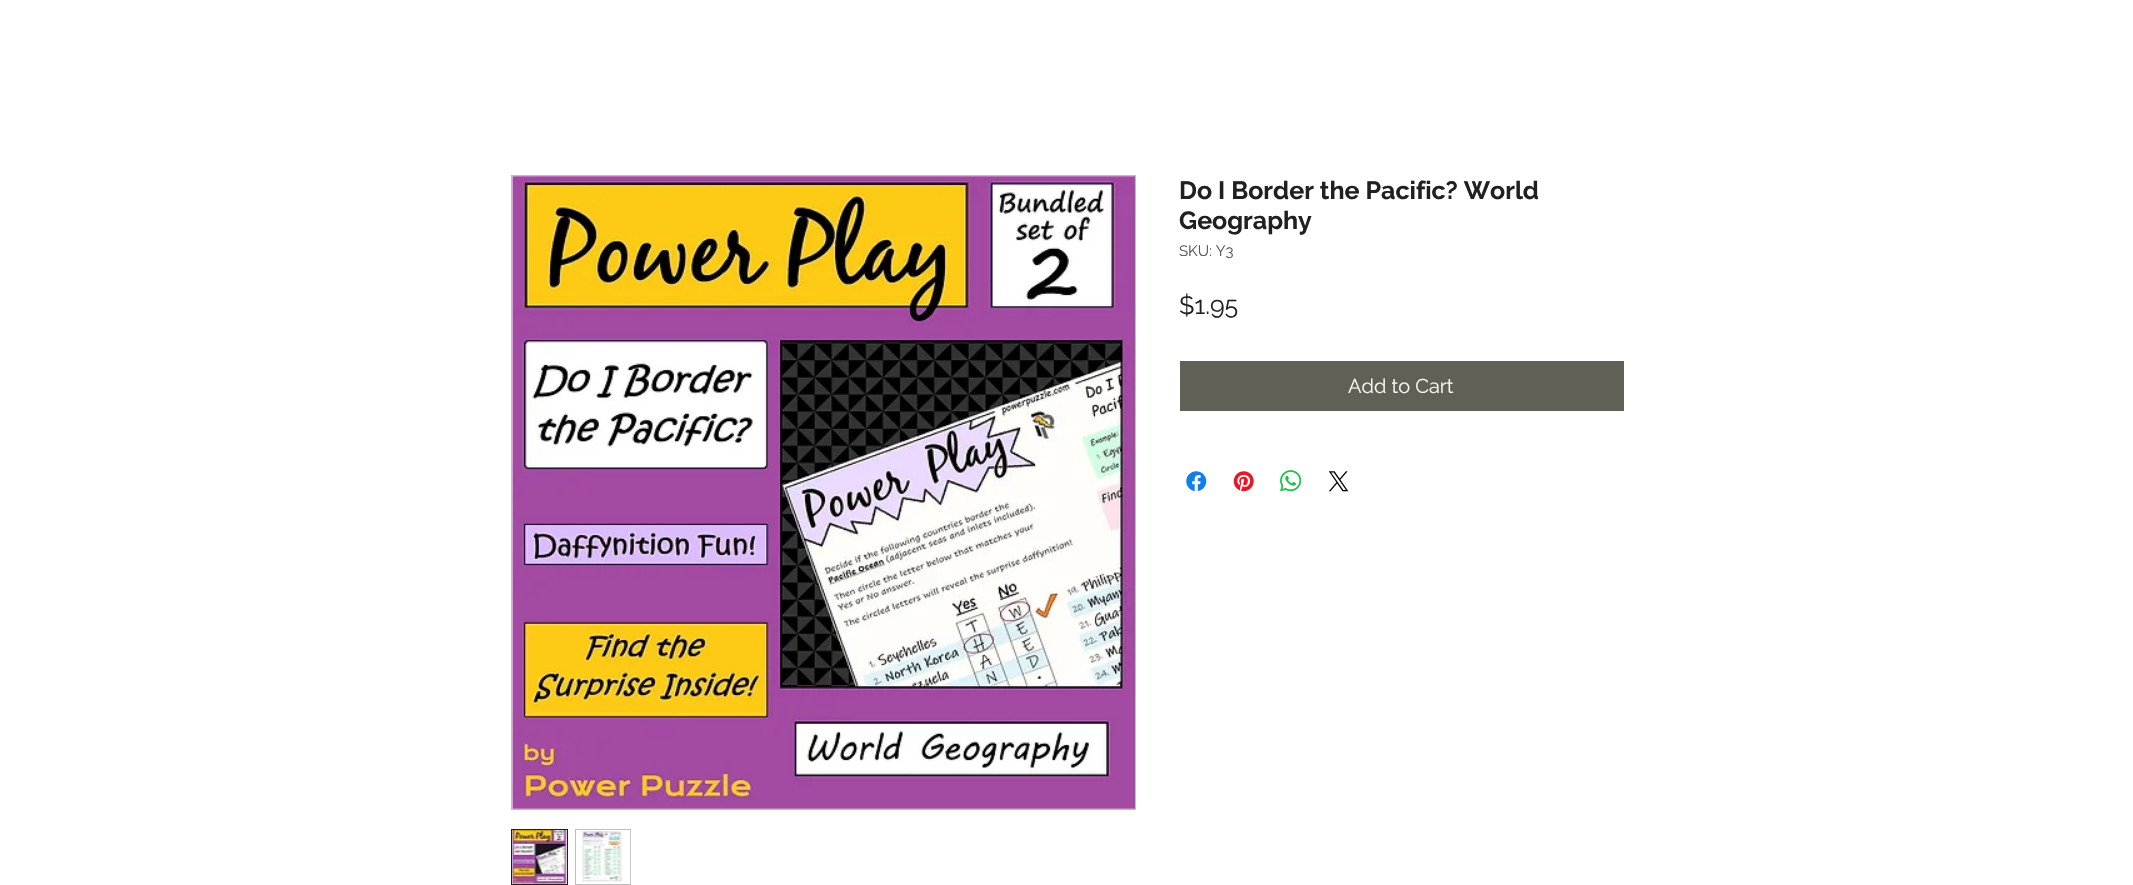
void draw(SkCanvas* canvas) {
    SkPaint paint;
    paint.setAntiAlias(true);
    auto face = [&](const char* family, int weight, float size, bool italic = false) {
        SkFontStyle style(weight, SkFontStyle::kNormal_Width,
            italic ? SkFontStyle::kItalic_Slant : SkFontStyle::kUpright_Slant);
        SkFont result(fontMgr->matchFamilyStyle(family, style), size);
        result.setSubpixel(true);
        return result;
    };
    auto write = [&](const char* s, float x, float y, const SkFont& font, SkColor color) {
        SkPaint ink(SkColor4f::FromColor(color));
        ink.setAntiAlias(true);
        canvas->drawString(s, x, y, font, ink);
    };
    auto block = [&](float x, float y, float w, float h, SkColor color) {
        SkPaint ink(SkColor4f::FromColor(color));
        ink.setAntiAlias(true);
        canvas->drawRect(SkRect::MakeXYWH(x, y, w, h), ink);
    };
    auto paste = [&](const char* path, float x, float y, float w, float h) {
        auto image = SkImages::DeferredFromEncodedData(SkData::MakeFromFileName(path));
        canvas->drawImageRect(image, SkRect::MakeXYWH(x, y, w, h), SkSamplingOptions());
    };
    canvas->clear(SK_ColorWHITE);
    paint.setStyle(SkPaint::kStroke_Style);
    paint.setStrokeWidth(1);
    paint.setColor(SkColorSetRGB(190, 190, 190));
    canvas->drawRect(SkRect::MakeXYWH(511.5f, 175.5f, 624, 634), paint);
    paste("pic1.png", 512, 176, 623, 633);
    paint.setColor(SkColorSetRGB(32, 32, 32));
    canvas->drawRect(SkRect::MakeXYWH(511.5f, 829.5f, 56, 55), paint);
    paste("pic2.png", 512, 830, 55, 54);
    paint.setColor(SkColorSetRGB(190, 190, 190));
    canvas->drawRect(SkRect::MakeXYWH(575.5f, 829.5f, 55, 55), paint);
    paste("pic3.png", 582, 830, 49, 54);
    auto kFont1 = face("Raleway", 700, 25);
    write("Do I Border the Pacific? World", 1179, 199, kFont1, SkColorSetRGB(32, 32, 32));
    write("Geography", 1179, 229, kFont1, SkColorSetRGB(32, 32, 32));
    auto kFont2 = face("Raleway", 400, 15);
    write("SKU: Y3", 1179, 256, kFont2, SkColorSetRGB(85, 85, 85));
    auto kFont3 = face("Raleway", 400, 25);
    write("$1.95", 1179, 314, kFont3, SkColorSetRGB(32, 32, 32));
    block(1180, 361, 444, 50, SkColorSetRGB(97, 96, 87));
    auto kFont4 = face("Raleway", 400, 20);
    write("Add to Cart", 1348, 393, kFont4, SkColorSetRGB(247, 245, 238));
    paste("pic4.png", 1186, 471, 21, 21);
    paste("pic5.png", 1233, 471, 21, 21);
    paste("pic6.png", 1280, 470, 22, 22);
    paste("pic7.png", 1328, 471, 21, 21);
}
